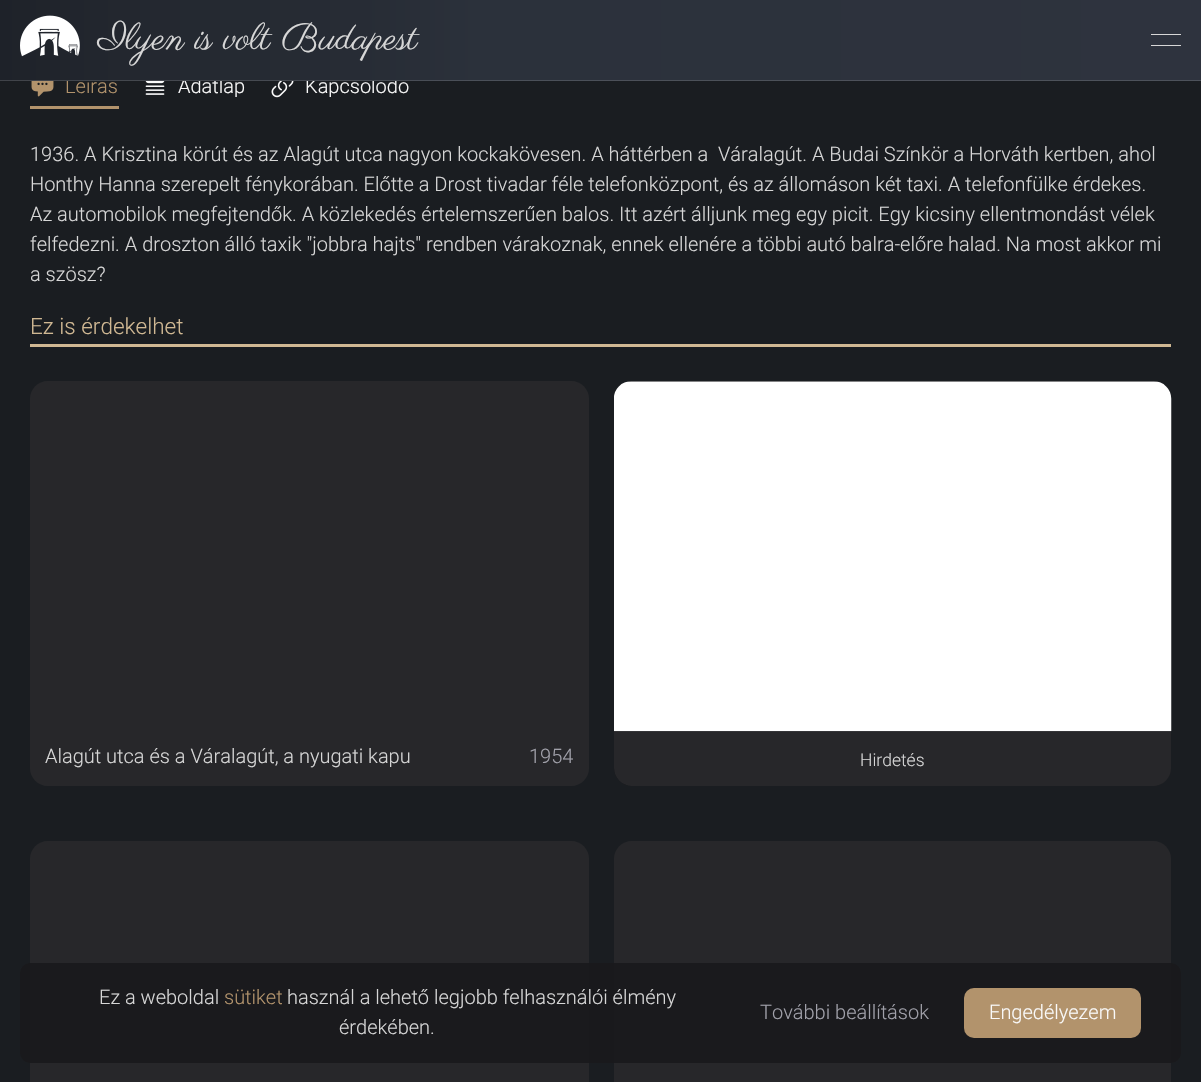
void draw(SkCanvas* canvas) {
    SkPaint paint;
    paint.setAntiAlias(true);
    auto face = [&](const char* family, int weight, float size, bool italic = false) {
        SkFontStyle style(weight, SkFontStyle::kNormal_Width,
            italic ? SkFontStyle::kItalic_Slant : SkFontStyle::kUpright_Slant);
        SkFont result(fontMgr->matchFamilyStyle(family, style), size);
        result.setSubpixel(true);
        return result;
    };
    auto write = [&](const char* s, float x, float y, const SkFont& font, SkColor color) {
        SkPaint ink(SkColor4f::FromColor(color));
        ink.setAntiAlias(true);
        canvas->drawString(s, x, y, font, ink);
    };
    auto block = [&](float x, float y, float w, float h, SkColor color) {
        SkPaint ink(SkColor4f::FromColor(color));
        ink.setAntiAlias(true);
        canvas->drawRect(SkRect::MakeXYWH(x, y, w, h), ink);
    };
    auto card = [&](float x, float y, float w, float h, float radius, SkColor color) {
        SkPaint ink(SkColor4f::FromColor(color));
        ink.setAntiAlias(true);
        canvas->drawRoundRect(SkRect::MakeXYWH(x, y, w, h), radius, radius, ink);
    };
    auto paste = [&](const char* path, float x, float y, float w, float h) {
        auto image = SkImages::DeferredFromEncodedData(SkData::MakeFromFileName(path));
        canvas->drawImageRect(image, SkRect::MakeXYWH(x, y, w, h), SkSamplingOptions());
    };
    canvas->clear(SkColorSetRGB(26, 29, 33));
    auto kFont1 = face("Roboto", 300, 20);
    write("Leírás", 65, 93, kFont1, SkColorSetRGB(178, 147, 108));
    write("Adatlap", 178, 93, kFont1, SkColorSetRGB(250, 250, 250));
    write("Kapcsolódó", 305, 93, kFont1, SkColorSetRGB(250, 250, 250));
    {
        const SkColor colors[] = {SkColorSetRGB(30, 34, 41), SkColorSetRGB(35, 39, 47), SkColorSetRGB(37, 42, 50), SkColorSetRGB(39, 44, 53), SkColorSetRGB(43, 49, 59), SkColorSetRGB(46, 51, 62)};
        const float stops[] = {0, 0.1f, 0.2f, 0.3f, 0.4f, 1};
        const SkPoint ends[] = {{0, 541}, {1201, 541}};
        paint.setShader(SkGradientShader::MakeLinear(ends, colors, stops, 6, SkTileMode::kClamp));
        paint.setAlpha(255);
    }
    canvas->drawRect(SkRect::MakeXYWH(0, 0, 1201, 81), paint);
    block(0, 80, 1201, 1, SkColorSetARGB(38, 255, 255, 255));
    paste("pic1.png", 20, 15, 60, 42);
    auto kFont2 = face("Parisienne", 400, 37.5f);
    write("Ilyen is volt Budapest", 98, 49, kFont2, SkColorSetRGB(215, 215, 215));
    block(1151, 34, 30, 1, SkColorSetRGB(215, 215, 215));
    block(1151, 45, 30, 1, SkColorSetRGB(215, 215, 215));
    paste("pic2.png", 31, 81, 23, 16);
    block(30, 106, 89, 3, SkColorSetRGB(178, 147, 108));
    paste("pic3.png", 145, 81, 20, 14);
    paste("pic4.png", 271, 81, 23, 17);
    write("1936. A Krisztina körút és az Alagút utca nagyon kockakövesen. A háttérben a  Váralagút. A Budai Színkör a Horváth kertben, ahol", 30, 161, kFont1, SkColorSetRGB(215, 215, 215));
    write("Honthy Hanna szerepelt fénykorában. Előtte a Drost tivadar féle telefonközpont, és az állomáson két taxi. A telefonfülke érdekes.", 30, 191, kFont1, SkColorSetRGB(215, 215, 215));
    write("Az automobilok megfejtendők. A közlekedés értelemszerűen balos. Itt azért álljunk meg egy picit. Egy kicsiny ellentmondást vélek", 30, 221, kFont1, SkColorSetRGB(215, 215, 215));
    write("felfedezni. A droszton álló taxik \"jobbra hajts\" rendben várakoznak, ennek ellenére a többi autó balra-előre halad. Na most akkor mi", 30, 251, kFont1, SkColorSetRGB(215, 215, 215));
    write("a szösz?", 30, 281, kFont1, SkColorSetRGB(215, 215, 215));
    block(30, 344, 1141, 3, SkColorSetRGB(208, 184, 147));
    auto kFont3 = face("Roboto", 300, 22.5f);
    write("Ez is érdekelhet", 30, 334, kFont3, SkColorSetRGB(208, 184, 147));
    paint.setShader(nullptr);
    paint.setColor(SkColorSetRGB(39, 39, 42));
    canvas->drawPath(SkPathBuilder().moveTo(48, 381).lineTo(571, 381).cubicTo(581, 381, 589, 389, 589, 399).lineTo(589, 694).lineTo(30, 694).lineTo(30, 399).cubicTo(30, 389, 38, 381, 48, 381).close().detach(), paint);
    canvas->drawPath(SkPathBuilder().moveTo(30, 694).lineTo(589, 694).lineTo(589, 768).cubicTo(589, 778, 581, 786, 571, 786).lineTo(48, 786).cubicTo(38, 786, 30, 778, 30, 768).close().detach(), paint);
    write("Alagút utca és a Váralagút, a nyugati kapu", 45, 763, kFont1, SkColorSetRGB(215, 215, 215));
    write("1954", 529, 763, kFont1, SkColorSetRGB(161, 161, 170));
    card(614, 381, 557, 405, 18, SkColorSetRGB(24, 24, 27));
    canvas->save();
    canvas->clipPath(SkPathBuilder().moveTo(632, 381).lineTo(1153, 381).cubicTo(1163, 381, 1171, 389, 1171, 399).lineTo(1171, 768).cubicTo(1171, 778, 1163, 786, 1153, 786).lineTo(632, 786).cubicTo(622, 786, 614, 778, 614, 768).lineTo(614, 399).cubicTo(614, 389, 622, 381, 632, 381).close().detach(), true);
    canvas->drawPath(SkPathBuilder().moveTo(632, 381).lineTo(1155, 381).cubicTo(1165, 381, 1173, 389, 1173, 399).lineTo(1173, 731).lineTo(614, 731).lineTo(614, 399).cubicTo(614, 389, 622, 381, 632, 381).close().detach(), paint);
    canvas->drawPath(SkPathBuilder().moveTo(614, 731).lineTo(1173, 731).lineTo(1173, 768).cubicTo(1173, 778, 1165, 786, 1155, 786).lineTo(632, 786).cubicTo(622, 786, 614, 778, 614, 768).close().detach(), paint);
    canvas->restore();
    paste("pic5.png", 614, 381, 558, 351);
    auto kFont4 = face("Roboto", 300, 17.5f);
    write("Hirdetés", 860, 766, kFont4, SkColorSetRGB(215, 215, 215));
    canvas->drawPath(SkPathBuilder().moveTo(48, 841).lineTo(571, 841).cubicTo(581, 841, 589, 849, 589, 859).lineTo(589, 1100).lineTo(30, 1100).lineTo(30, 859).cubicTo(30, 849, 38, 841, 48, 841).close().detach(), paint);
    canvas->drawPath(SkPathBuilder().moveTo(632, 841).lineTo(1153, 841).cubicTo(1163, 841, 1171, 849, 1171, 859).lineTo(1171, 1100).lineTo(614, 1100).lineTo(614, 859).cubicTo(614, 849, 622, 841, 632, 841).close().detach(), paint);
    card(20, 963, 1161, 100, 10, SkColorSetARGB(230, 24, 24, 27));
    write("Ez a weboldal", 99, 1004, kFont1, SkColorSetRGB(215, 215, 215));
    write("sütiket", 224, 1004, kFont1, SkColorSetRGB(178, 147, 108));
    write("használ a lehető legjobb felhasználói élmény", 287, 1004, kFont1, SkColorSetRGB(215, 215, 215));
    write("érdekében.", 339, 1034, kFont1, SkColorSetRGB(215, 215, 215));
    write("További beállítások", 760, 1019, kFont1, SkColorSetRGB(161, 161, 170));
    card(964, 988, 177, 50, 10, SkColorSetRGB(178, 147, 108));
    write("Engedélyezem", 989, 1019, kFont1, SkColorSetRGB(250, 250, 250));
}
